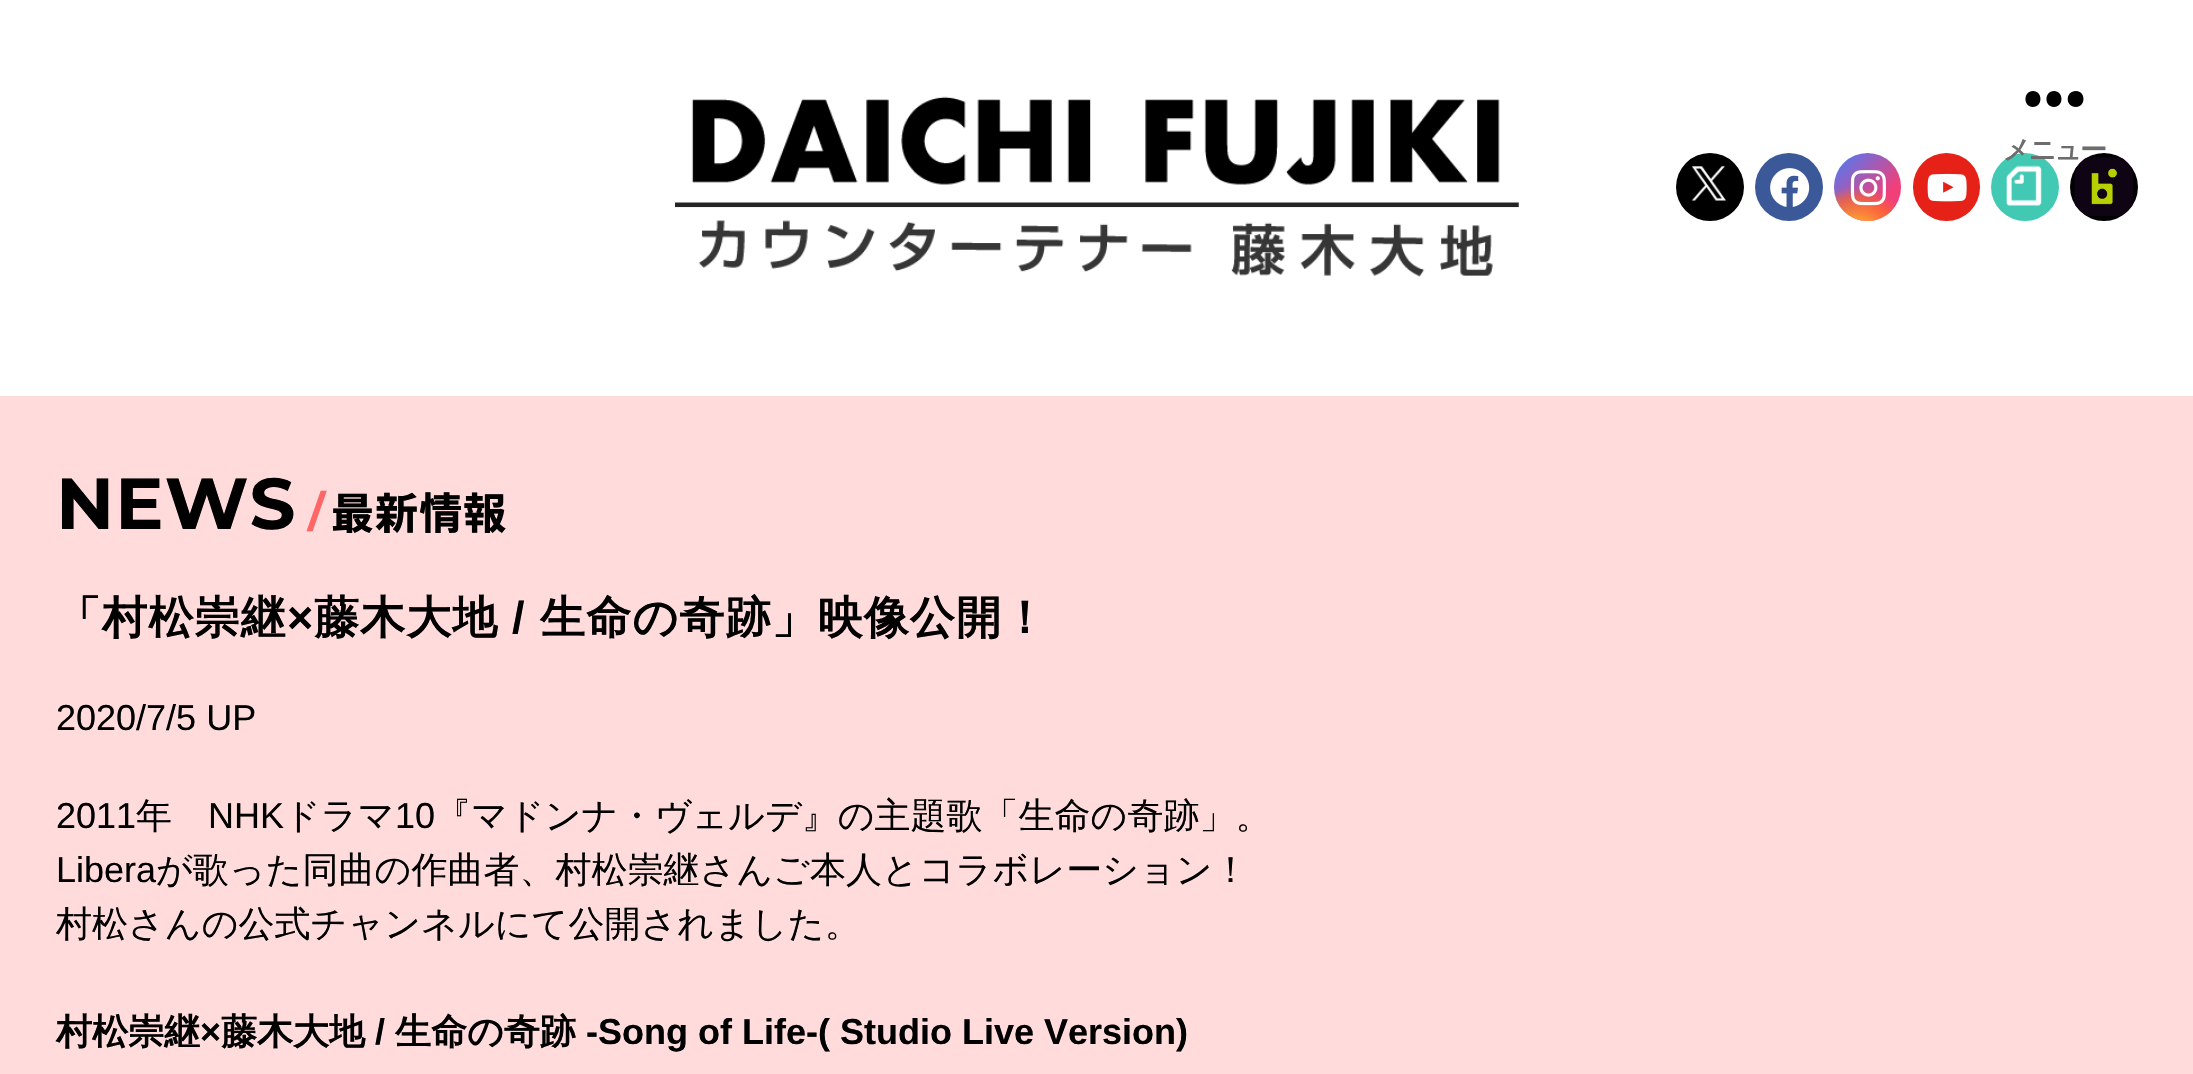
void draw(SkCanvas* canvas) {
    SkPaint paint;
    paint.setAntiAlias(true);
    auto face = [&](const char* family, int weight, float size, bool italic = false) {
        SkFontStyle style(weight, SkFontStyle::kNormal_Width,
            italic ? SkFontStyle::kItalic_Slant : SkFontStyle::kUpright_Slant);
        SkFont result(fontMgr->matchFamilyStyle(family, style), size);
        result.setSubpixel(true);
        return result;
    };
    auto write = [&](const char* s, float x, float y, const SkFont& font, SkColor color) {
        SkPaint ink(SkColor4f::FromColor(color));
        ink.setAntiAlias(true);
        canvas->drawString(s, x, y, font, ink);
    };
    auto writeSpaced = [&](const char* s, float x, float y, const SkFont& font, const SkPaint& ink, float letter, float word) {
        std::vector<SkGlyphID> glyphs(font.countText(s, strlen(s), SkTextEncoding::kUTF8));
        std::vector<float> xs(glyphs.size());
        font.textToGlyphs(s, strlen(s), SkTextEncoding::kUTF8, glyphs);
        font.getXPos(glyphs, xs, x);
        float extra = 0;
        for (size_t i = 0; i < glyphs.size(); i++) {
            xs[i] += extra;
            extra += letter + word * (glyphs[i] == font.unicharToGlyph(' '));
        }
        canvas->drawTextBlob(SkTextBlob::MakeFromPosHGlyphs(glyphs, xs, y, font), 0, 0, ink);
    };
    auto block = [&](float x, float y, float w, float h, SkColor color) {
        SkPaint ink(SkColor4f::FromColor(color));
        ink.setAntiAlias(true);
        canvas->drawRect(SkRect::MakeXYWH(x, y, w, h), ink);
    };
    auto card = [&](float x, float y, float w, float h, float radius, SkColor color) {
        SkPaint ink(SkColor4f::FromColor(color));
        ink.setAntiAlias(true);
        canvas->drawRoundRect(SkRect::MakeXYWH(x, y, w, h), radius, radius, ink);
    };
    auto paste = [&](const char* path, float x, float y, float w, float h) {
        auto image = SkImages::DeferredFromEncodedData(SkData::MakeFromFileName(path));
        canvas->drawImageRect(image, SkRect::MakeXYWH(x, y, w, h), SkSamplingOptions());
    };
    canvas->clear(SK_ColorWHITE);
    paste("pic1.png", 675, 96, 844, 181);
    paint.setColor(SK_ColorBLACK);
    canvas->drawPath(SkPathBuilder(SkPathFillType::kEvenOdd).moveTo(2033, 107).cubicTo(2023, 107, 2023, 91, 2033, 91).cubicTo(2043, 91, 2043, 107, 2033, 107).close().moveTo(2054, 107).cubicTo(2044, 107, 2044, 91, 2054, 91).cubicTo(2064, 91, 2064, 107, 2054, 107).close().moveTo(2076, 107).cubicTo(2065, 107, 2065, 91, 2076, 91).cubicTo(2086, 91, 2086, 107, 2076, 107).close().detach(), paint);
    paint.setColor(SkColorSetRGB(65, 201, 180));
    canvas->drawCircle(2025, 187, 34, paint);
    paint.setColor(SK_ColorBLACK);
    canvas->drawCircle(2104, 187, 34, paint);
    paste("pic7.png", 2074, 157, 59, 59);
    auto kFont1 = face("WenQuanYi Zen Hei", 700, 27);
    paint.setColor(SkColorSetRGB(109, 109, 109));
    writeSpaced("メニュー", 2003, 159, kFont1, paint, -2, 0);
    paint.setColor(SK_ColorBLACK);
    canvas->drawCircle(1710, 187, 34, paint);
    paste("pic2.png", 1691, 166, 35, 35);
    paint.setColor(SkColorSetRGB(59, 89, 152));
    canvas->drawCircle(1789, 187, 34, paint);
    paste("pic3.png", 1770, 168, 40, 39);
    {
        const SkColor colors[] = {SkColorSetRGB(66, 126, 255), SkColorSetRGB(241, 63, 121)};
        const float stops[] = {0, 0.7f};
        const SkPoint ends[] = {{1834, 153}, {1901, 221}};
        paint.setShader(SkGradientShader::MakeLinear(ends, colors, stops, 2, SkTileMode::kClamp));
        paint.setAlpha(255);
    }
    canvas->drawRoundRect(SkRect::MakeXYWH(1834, 153, 67, 68), 33.5f, 33.5f, paint);
    {
        const SkColor colors[] = {SkColorSetRGB(255, 219, 44), SkColorSetARGB(166, 255, 105, 34), SkColorSetARGB(0, 255, 105, 34)};
        const float stops[] = {0.1f, 0.55f, 0.7f};
        paint.setShader(SkGradientShader::MakeRadial({1856, 243}, 80, colors, stops, 3, SkTileMode::kClamp));
        paint.setAlpha(255);
    }
    canvas->drawPath(SkPathBuilder().moveTo(1834, 187).lineTo(1901, 187).lineTo(1901, 187.5f).cubicTo(1901, 206, 1886, 221, 1867.5f, 221).cubicTo(1849, 221, 1834, 206, 1834, 187.5f).close().detach(), paint);
    paste("pic4.png", 1850, 170, 36, 36);
    card(1913, 153, 67, 68, 33.5f, SkColorSetRGB(230, 33, 23));
    paste("pic5.png", 1927, 173, 40, 29);
    paste("pic6.png", 2006, 165, 36, 41);
    block(0, 396, 2193, 678, SkColorSetRGB(255, 219, 219));
    auto kFont2 = face("Montserrat", 700, 72);
    paint.setShader(nullptr);
    paint.setColor(SK_ColorBLACK);
    writeSpaced("NEWS", 56, 529, kFont2, paint, 1.1f, 0);
    auto kFont3 = face("Montserrat", 700, 43);
    paint.setColor(SkColorSetRGB(255, 102, 101));
    writeSpaced("/", 308, 527, kFont3, paint, 1.1f, 0);
    auto kFont4 = face("Noto Sans JP", 800, 43);
    paint.setColor(SK_ColorBLACK);
    writeSpaced("最新情報", 331, 529, kFont4, paint, 1.1f, 0);
    auto kFont5 = face("WenQuanYi Zen Hei", 700, 45);
    writeSpaced("「村松崇継", 56, 633, kFont5, paint, 1.1f, 0);
    auto kFont6 = face("Liberation Sans", 700, 45);
    writeSpaced("×", 287, 633, kFont6, paint, 1.1f, 0);
    writeSpaced("藤木大地", 314, 633, kFont5, paint, 1.1f, 0);
    writeSpaced("/", 512, 633, kFont6, paint, 1.1f, 0);
    writeSpaced("生命の奇跡」映像公開！", 540, 633, kFont5, paint, 1.1f, 0);
    auto kFont7 = face("Liberation Sans", 400, 36);
    write("2020/7/5 UP", 56, 730, kFont7, SK_ColorBLACK);
    write("2011", 56, 828, kFont7, SK_ColorBLACK);
    auto kFont8 = face("WenQuanYi Zen Hei", 500, 36);
    write("年", 136, 828, kFont8, SK_ColorBLACK);
    write("NHK", 208, 828, kFont7, SK_ColorBLACK);
    write("ドラマ", 284, 828, kFont8, SK_ColorBLACK);
    write("10", 395, 828, kFont7, SK_ColorBLACK);
    write("『マドンナ・ヴェルデ』の主題歌「生命の奇跡」。", 435, 828, kFont8, SK_ColorBLACK);
    write("Libera", 56, 882, kFont7, SK_ColorBLACK);
    write("が歌った同曲の作曲者、村松崇継さんご本人とコラボレーション！", 156, 882, kFont8, SK_ColorBLACK);
    write("村松さんの公式チャンネルにて公開されました。", 56, 936, kFont8, SK_ColorBLACK);
    auto kFont9 = face("WenQuanYi Zen Hei", 700, 36);
    write("村松崇継", 56, 1044, kFont9, SK_ColorBLACK);
    auto kFont10 = face("Liberation Sans", 700, 36);
    write("×", 200, 1044, kFont10, SK_ColorBLACK);
    write("藤木大地", 221, 1044, kFont9, SK_ColorBLACK);
    write("/", 375, 1044, kFont10, SK_ColorBLACK);
    write("生命の奇跡", 395, 1044, kFont9, SK_ColorBLACK);
    write("-Song of Life-( Studio Live Version)", 586, 1044, kFont10, SK_ColorBLACK);
}
